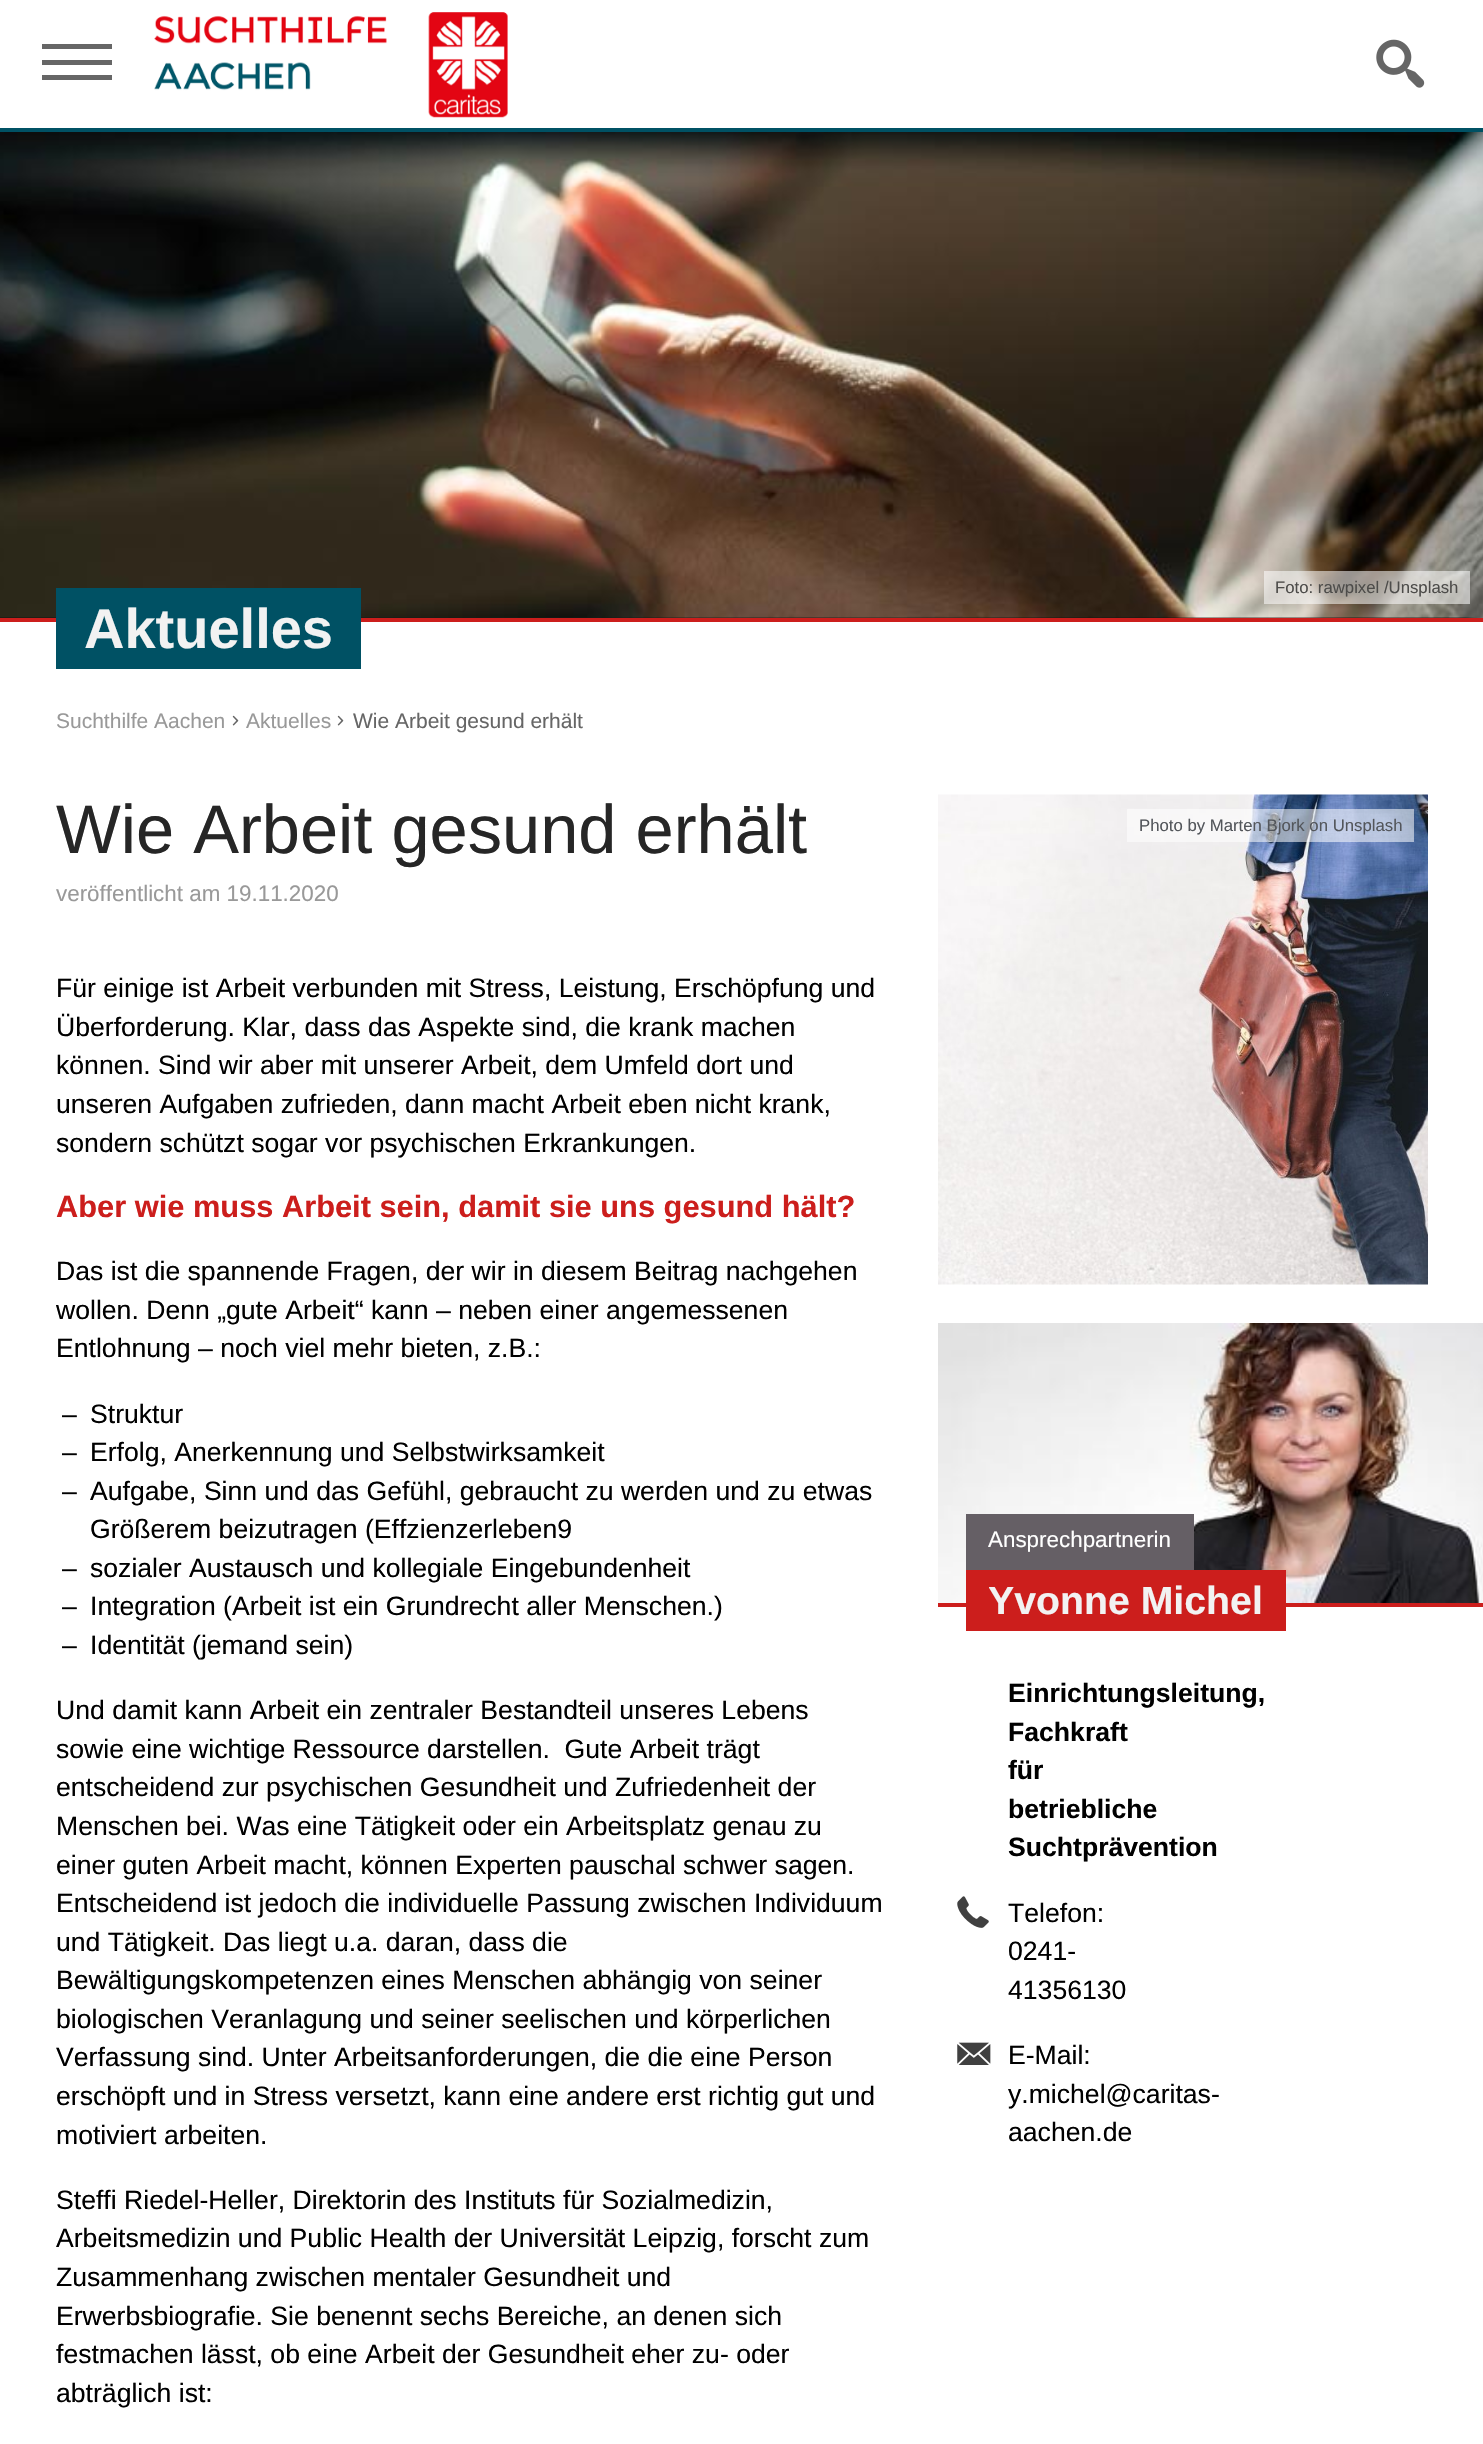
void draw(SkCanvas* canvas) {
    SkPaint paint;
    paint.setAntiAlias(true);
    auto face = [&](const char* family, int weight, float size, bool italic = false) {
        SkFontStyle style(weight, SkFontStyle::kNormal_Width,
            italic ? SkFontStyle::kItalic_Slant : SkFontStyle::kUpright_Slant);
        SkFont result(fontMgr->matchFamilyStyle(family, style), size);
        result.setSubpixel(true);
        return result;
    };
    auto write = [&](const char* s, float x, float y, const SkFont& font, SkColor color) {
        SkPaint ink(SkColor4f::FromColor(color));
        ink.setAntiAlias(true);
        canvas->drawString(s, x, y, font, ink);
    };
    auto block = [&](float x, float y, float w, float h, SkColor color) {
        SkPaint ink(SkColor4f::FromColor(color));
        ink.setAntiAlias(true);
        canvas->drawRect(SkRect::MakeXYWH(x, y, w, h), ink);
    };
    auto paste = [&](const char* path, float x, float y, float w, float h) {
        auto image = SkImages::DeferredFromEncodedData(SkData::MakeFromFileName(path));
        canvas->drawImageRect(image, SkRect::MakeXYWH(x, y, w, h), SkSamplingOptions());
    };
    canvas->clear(SK_ColorWHITE);
    block(0, 128, 1483, 4, SkColorSetRGB(0, 81, 100));
    block(42, 44, 70, 5, SkColorSetRGB(102, 102, 102));
    block(42, 60, 70, 5, SkColorSetRGB(102, 102, 102));
    block(42, 75, 70, 5, SkColorSetRGB(102, 102, 102));
    paste("pic1.png", 154, 12, 354, 106);
    paste("pic2.png", 1376, 39, 49, 49);
    paste("pic3.png", 0, 132, 1483, 486);
    block(0, 618, 1483, 4, SkColorSetRGB(204, 30, 28));
    block(1264, 571, 206, 33, SkColorSetARGB(140, 255, 255, 255));
    auto kFont1 = face("Liberation Sans", 400, 16.75f);
    write("Foto: rawpixel /Unsplash", 1275, 593, kFont1, SkColorSetRGB(77, 76, 74));
    paint.setColor(SkColorSetRGB(0, 81, 100));
    canvas->drawPath(SkPathBuilder().moveTo(56, 588).lineTo(56, 669).lineTo(305, 669).lineTo(305, 668).lineTo(84, 668).lineTo(84, 588).close().detach(), paint);
    canvas->drawPath(SkPathBuilder().moveTo(112, 668).lineTo(112, 669).lineTo(361, 669).lineTo(361, 588).lineTo(332, 588).lineTo(332, 668).close().detach(), paint);
    block(84, 588, 248, 80, SkColorSetRGB(0, 81, 100));
    auto kFont2 = face("Liberation Sans", 700, 56);
    write("Aktuelles", 84, 648, kFont2, SkColorSetRGB(242, 242, 242));
    auto kFont3 = face("Liberation Sans", 400, 21);
    write("Suchthilfe Aachen", 56, 728, kFont3, SkColorSetRGB(153, 153, 153));
    paste("pic4.png", 232, 715, 7, 11);
    write("Aktuelles", 246, 728, kFont3, SkColorSetRGB(153, 153, 153));
    paste("pic4.png", 337, 715, 7, 11);
    write("Wie Arbeit gesund erhält", 353, 728, kFont3, SkColorSetRGB(102, 102, 102));
    auto kFont4 = face("Liberation Sans", 400, 68.6f);
    write("Wie Arbeit gesund erhält", 56, 853, kFont4, SkColorSetRGB(38, 38, 38));
    auto kFont5 = face("Liberation Sans", 400, 22.4f);
    write("veröffentlicht am 19.11.2020", 56, 901, kFont5, SkColorSetRGB(153, 153, 153));
    auto kFont6 = face("Liberation Sans", 400, 26.6f);
    write("Für einige ist Arbeit verbunden mit Stress, Leistung, Erschöpfung und", 56, 997, kFont6, SK_ColorBLACK);
    write("Überforderung. Klar, dass das Aspekte sind, die krank machen", 56, 1036, kFont6, SK_ColorBLACK);
    write("können. Sind wir aber mit unserer Arbeit, dem Umfeld dort und", 56, 1074, kFont6, SK_ColorBLACK);
    write("unseren Aufgaben zufrieden, dann macht Arbeit eben nicht krank,", 56, 1113, kFont6, SK_ColorBLACK);
    write("sondern schützt sogar vor psychischen Erkrankungen.", 56, 1152, kFont6, SK_ColorBLACK);
    auto kFont7 = face("Liberation Sans", 700, 30.8f);
    write("Aber wie muss Arbeit sein, damit sie uns gesund hält?", 56, 1217, kFont7, SkColorSetRGB(204, 30, 28));
    write("Das ist die spannende Fragen, der wir in diesem Beitrag nachgehen", 56, 1280, kFont6, SK_ColorBLACK);
    write("wollen. Denn „gute Arbeit“ kann – neben einer angemessenen", 56, 1319, kFont6, SK_ColorBLACK);
    write("Entlohnung – noch viel mehr bieten, z.B.:", 56, 1357, kFont6, SK_ColorBLACK);
    write("–", 62, 1423, kFont6, SK_ColorBLACK);
    write("Struktur", 90, 1423, kFont6, SK_ColorBLACK);
    write("–", 62, 1461, kFont6, SK_ColorBLACK);
    write("Erfolg, Anerkennung und Selbstwirksamkeit", 90, 1461, kFont6, SK_ColorBLACK);
    write("–", 62, 1500, kFont6, SK_ColorBLACK);
    write("Aufgabe, Sinn und das Gefühl, gebraucht zu werden und zu etwas", 90, 1500, kFont6, SK_ColorBLACK);
    write("Größerem beizutragen (Effzienzerleben9", 90, 1538, kFont6, SK_ColorBLACK);
    write("–", 62, 1577, kFont6, SK_ColorBLACK);
    write("sozialer Austausch und kollegiale Eingebundenheit", 90, 1577, kFont6, SK_ColorBLACK);
    write("–", 62, 1615, kFont6, SK_ColorBLACK);
    write("Integration (Arbeit ist ein Grundrecht aller Menschen.)", 90, 1615, kFont6, SK_ColorBLACK);
    write("–", 62, 1654, kFont6, SK_ColorBLACK);
    write("Identität (jemand sein)", 90, 1654, kFont6, SK_ColorBLACK);
    write("Und damit kann Arbeit ein zentraler Bestandteil unseres Lebens", 56, 1719, kFont6, SK_ColorBLACK);
    write("sowie eine wichtige Ressource darstellen.  Gute Arbeit trägt", 56, 1758, kFont6, SK_ColorBLACK);
    write("entscheidend zur psychischen Gesundheit und Zufriedenheit der", 56, 1796, kFont6, SK_ColorBLACK);
    write("Menschen bei. Was eine Tätigkeit oder ein Arbeitsplatz genau zu", 56, 1835, kFont6, SK_ColorBLACK);
    write("einer guten Arbeit macht, können Experten pauschal schwer sagen.", 56, 1874, kFont6, SK_ColorBLACK);
    write("Entscheidend ist jedoch die individuelle Passung zwischen Individuum", 56, 1912, kFont6, SK_ColorBLACK);
    write("und Tätigkeit. Das liegt u.a. daran, dass die", 56, 1951, kFont6, SK_ColorBLACK);
    write("Bewältigungskompetenzen eines Menschen abhängig von seiner", 56, 1989, kFont6, SK_ColorBLACK);
    write("biologischen Veranlagung und seiner seelischen und körperlichen", 56, 2028, kFont6, SK_ColorBLACK);
    write("Verfassung sind. Unter Arbeitsanforderungen, die die eine Person", 56, 2066, kFont6, SK_ColorBLACK);
    write("erschöpft und in Stress versetzt, kann eine andere erst richtig gut und", 56, 2105, kFont6, SK_ColorBLACK);
    write("motiviert arbeiten.", 56, 2144, kFont6, SK_ColorBLACK);
    write("Steffi Riedel-Heller, Direktorin des Instituts für Sozialmedizin,", 56, 2209, kFont6, SK_ColorBLACK);
    write("Arbeitsmedizin und Public Health der Universität Leipzig, forscht zum", 56, 2247, kFont6, SK_ColorBLACK);
    write("Zusammenhang zwischen mentaler Gesundheit und", 56, 2286, kFont6, SK_ColorBLACK);
    write("Erwerbsbiografie. Sie benennt sechs Bereiche, an denen sich", 56, 2325, kFont6, SK_ColorBLACK);
    write("festmachen lässt, ob eine Arbeit der Gesundheit eher zu- oder", 56, 2363, kFont6, SK_ColorBLACK);
    write("abträglich ist:", 56, 2402, kFont6, SK_ColorBLACK);
    paste("pic5.png", 938, 794, 490, 491);
    block(1127, 809, 287, 33, SkColorSetARGB(140, 255, 255, 255));
    write("Photo by Marten Bjork on Unsplash", 1139, 831, kFont1, SkColorSetRGB(83, 86, 91));
    block(938, 1603, 545, 4, SkColorSetRGB(204, 30, 28));
    paste("pic6.png", 938, 1323, 545, 280);
    block(966, 1514, 228, 56, SkColorSetRGB(101, 95, 101));
    write("Ansprechpartnerin", 988, 1547, kFont5, SK_ColorWHITE);
    block(989, 1570, 297, 61, SkColorSetRGB(204, 30, 28));
    auto kFont8 = face("Liberation Sans", 700, 39.25f);
    write("Yvonne Michel", 988, 1614, kFont8, SkColorSetRGB(242, 242, 242));
    block(966, 1570, 23, 61, SkColorSetRGB(204, 30, 28));
    auto kFont9 = face("Liberation Sans", 700, 26.6f);
    write("Einrichtungsleitung,", 1008, 1702, kFont9, SK_ColorBLACK);
    write("Fachkraft", 1008, 1741, kFont9, SK_ColorBLACK);
    write("für", 1008, 1779, kFont9, SK_ColorBLACK);
    write("betriebliche", 1008, 1818, kFont9, SK_ColorBLACK);
    write("Suchtprävention", 1008, 1856, kFont9, SK_ColorBLACK);
    paste("pic7.png", 957, 1896, 32, 32);
    write("Telefon:", 1008, 1922, kFont6, SK_ColorBLACK);
    write("0241-", 1008, 1960, kFont6, SK_ColorBLACK);
    write("41356130", 1008, 1999, kFont6, SK_ColorBLACK);
    paste("pic8.png", 957, 2042, 34, 23);
    write("E-Mail:", 1008, 2064, kFont6, SK_ColorBLACK);
    write("y.michel@caritas-", 1008, 2103, kFont6, SK_ColorBLACK);
    write("aachen.de", 1008, 2141, kFont6, SK_ColorBLACK);
}
